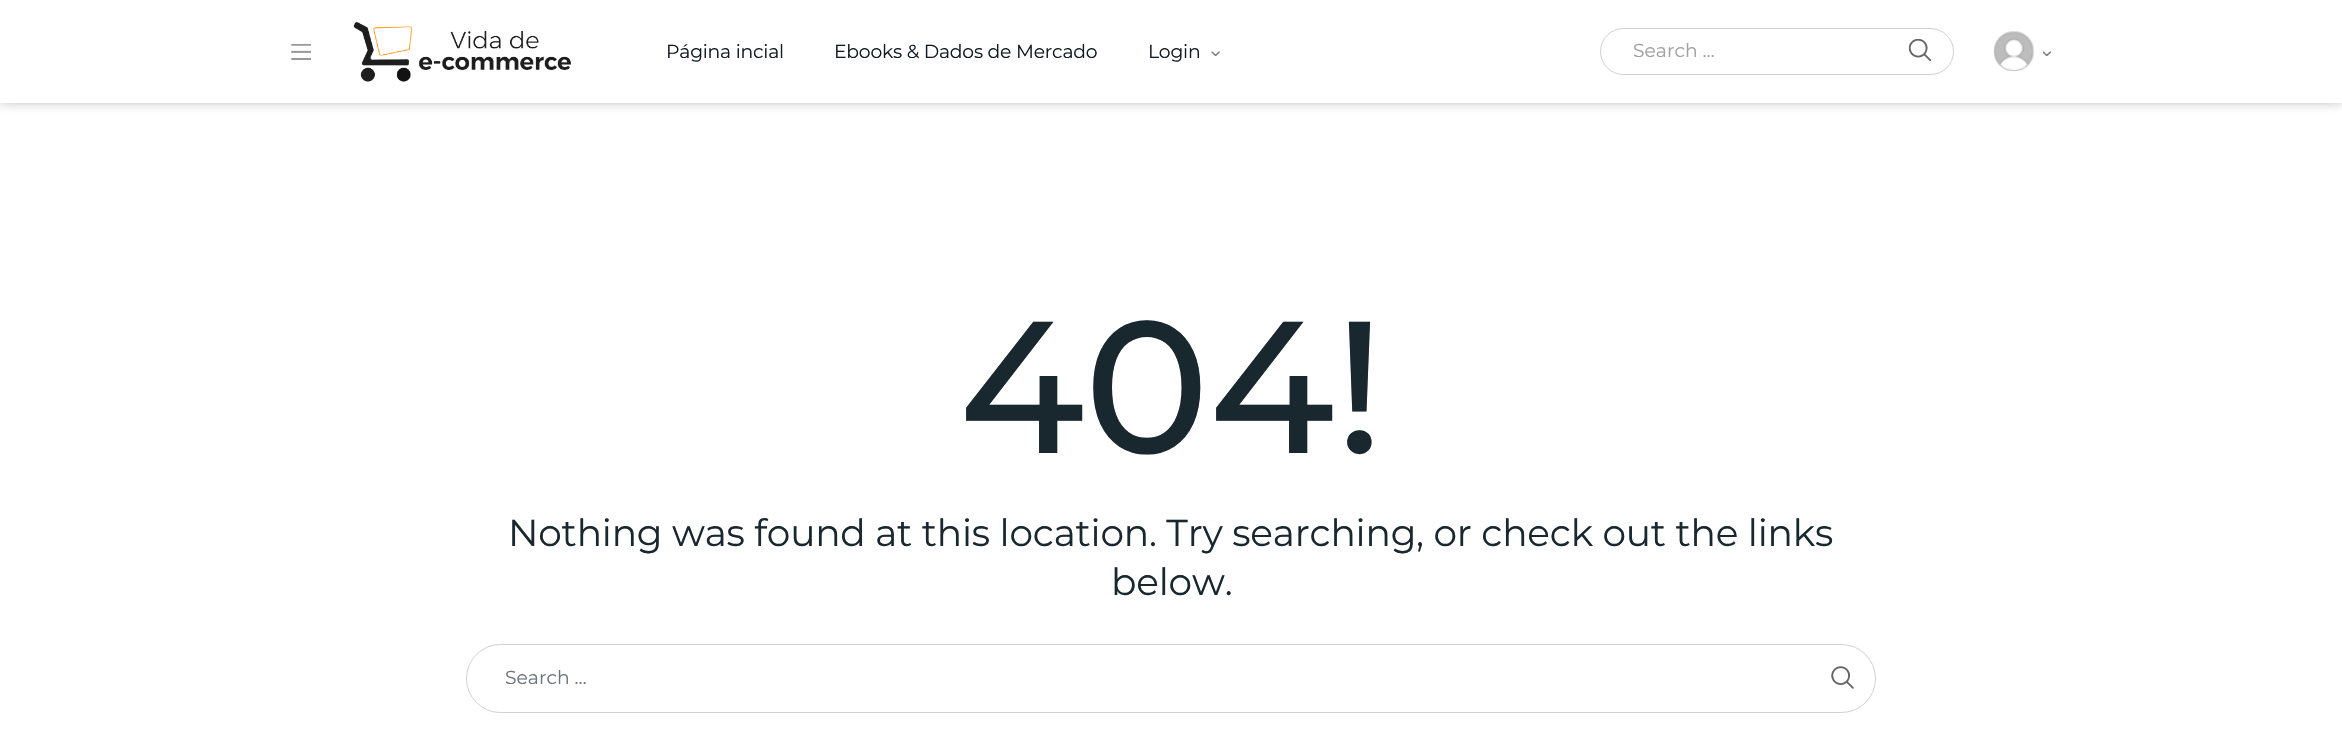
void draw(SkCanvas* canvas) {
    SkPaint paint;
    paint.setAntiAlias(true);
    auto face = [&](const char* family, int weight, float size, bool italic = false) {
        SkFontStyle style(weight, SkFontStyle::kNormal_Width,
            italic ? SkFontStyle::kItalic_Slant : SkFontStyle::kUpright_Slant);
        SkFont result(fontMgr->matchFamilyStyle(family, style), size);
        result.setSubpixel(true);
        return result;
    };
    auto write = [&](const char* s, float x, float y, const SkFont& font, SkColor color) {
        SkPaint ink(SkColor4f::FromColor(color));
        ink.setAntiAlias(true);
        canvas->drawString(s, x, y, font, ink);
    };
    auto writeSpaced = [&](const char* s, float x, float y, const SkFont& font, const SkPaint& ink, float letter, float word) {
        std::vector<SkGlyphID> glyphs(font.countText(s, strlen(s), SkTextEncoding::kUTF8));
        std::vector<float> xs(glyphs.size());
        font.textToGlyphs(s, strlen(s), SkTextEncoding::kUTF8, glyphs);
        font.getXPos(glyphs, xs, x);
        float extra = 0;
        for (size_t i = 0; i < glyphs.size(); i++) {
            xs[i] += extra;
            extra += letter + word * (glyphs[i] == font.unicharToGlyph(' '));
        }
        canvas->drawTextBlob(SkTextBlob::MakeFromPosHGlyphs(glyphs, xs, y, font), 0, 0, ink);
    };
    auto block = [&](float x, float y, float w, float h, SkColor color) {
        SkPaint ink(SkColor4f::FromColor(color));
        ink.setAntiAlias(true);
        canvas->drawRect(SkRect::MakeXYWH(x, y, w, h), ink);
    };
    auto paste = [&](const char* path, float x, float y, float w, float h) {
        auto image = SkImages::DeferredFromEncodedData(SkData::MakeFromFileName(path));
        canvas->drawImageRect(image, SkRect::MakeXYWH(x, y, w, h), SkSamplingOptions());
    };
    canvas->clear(SK_ColorWHITE);
    paint.setColor(SkColorSetARGB(77, 51, 51, 51));
    paint.setMaskFilter(SkMaskFilter::MakeBlur(kNormal_SkBlurStyle, 5));
    canvas->drawRect(SkRect::MakeXYWH(0, 0, 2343, 103), paint);
    paint.setMaskFilter(nullptr);
    block(0, 0, 2342, 103, SK_ColorWHITE);
    paste("pic1.png", 291, 44, 20, 16);
    paste("pic2.png", 353, 22, 218, 60);
    auto kFont1 = face("Montserrat", 400, 18.75f);
    paint.setColor(SkColorSetRGB(18, 26, 33));
    writeSpaced("Página incial", 666, 58, kFont1, paint, -0.2f, 0);
    writeSpaced("Ebooks & Dados de Mercado", 834, 58, kFont1, paint, -0.2f, 0);
    writeSpaced("Login", 1148, 58, kFont1, paint, -0.2f, 0);
    paste("pic3.png", 1211, 51, 9, 5);
    paint.setStyle(SkPaint::kStroke_Style);
    paint.setStrokeWidth(1);
    paint.setColor(SkColorSetRGB(208, 208, 210));
    canvas->drawRoundRect(SkRect::MakeXYWH(1600.5f, 28.5f, 353, 46), 23, 23, paint);
    write("Search …", 1633, 57, kFont1, SkColorSetRGB(160, 160, 160));
    paste("pic4.png", 1909, 39, 22, 22);
    paste("pic5.png", 1993, 31, 41, 41);
    paste("pic6.png", 2043, 51, 8, 5);
    auto kFont2 = face("Montserrat", 500, 187.5f);
    paint.setStyle(SkPaint::kFill_Style);
    paint.setColor(SkColorSetRGB(25, 39, 46));
    writeSpaced("404!", 959, 453, kFont2, paint, -0.2f, 0);
    auto kFont3 = face("Montserrat", 400, 37.5f);
    writeSpaced("Nothing was found at this location. Try searching, or check out the links", 508, 546, kFont3, paint, -0.2f, 0);
    writeSpaced("below.", 1111, 595, kFont3, paint, -0.2f, 0);
    paint.setStyle(SkPaint::kStroke_Style);
    paint.setColor(SkColorSetRGB(208, 208, 210));
    canvas->drawRoundRect(SkRect::MakeXYWH(466.5f, 644.5f, 1409, 68), 34, 34, paint);
    write("Search …", 505, 684, kFont1, SkColorSetRGB(108, 117, 125));
    paste("pic7.png", 1831, 666, 23, 23);
}
